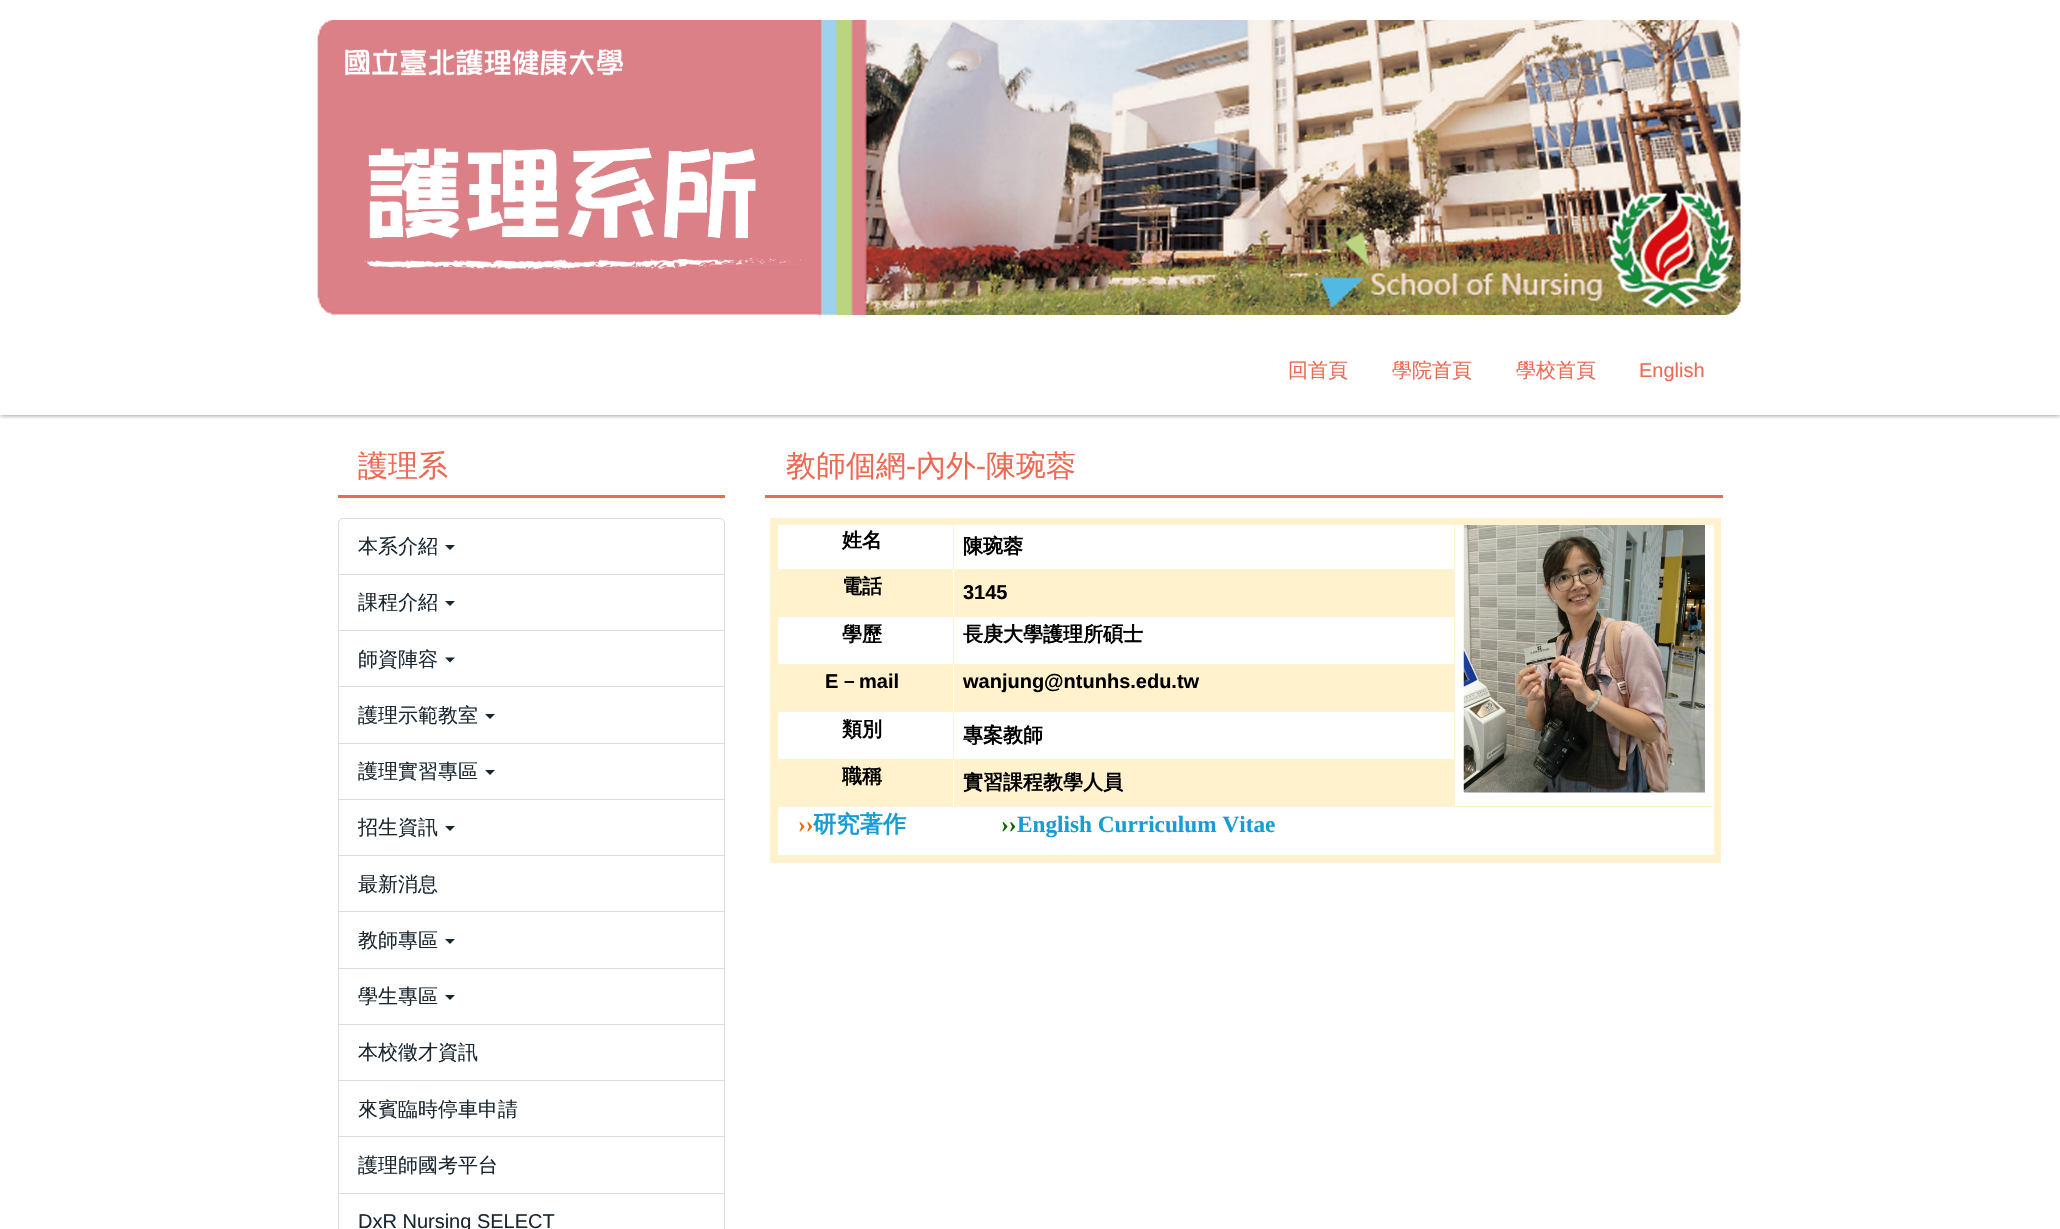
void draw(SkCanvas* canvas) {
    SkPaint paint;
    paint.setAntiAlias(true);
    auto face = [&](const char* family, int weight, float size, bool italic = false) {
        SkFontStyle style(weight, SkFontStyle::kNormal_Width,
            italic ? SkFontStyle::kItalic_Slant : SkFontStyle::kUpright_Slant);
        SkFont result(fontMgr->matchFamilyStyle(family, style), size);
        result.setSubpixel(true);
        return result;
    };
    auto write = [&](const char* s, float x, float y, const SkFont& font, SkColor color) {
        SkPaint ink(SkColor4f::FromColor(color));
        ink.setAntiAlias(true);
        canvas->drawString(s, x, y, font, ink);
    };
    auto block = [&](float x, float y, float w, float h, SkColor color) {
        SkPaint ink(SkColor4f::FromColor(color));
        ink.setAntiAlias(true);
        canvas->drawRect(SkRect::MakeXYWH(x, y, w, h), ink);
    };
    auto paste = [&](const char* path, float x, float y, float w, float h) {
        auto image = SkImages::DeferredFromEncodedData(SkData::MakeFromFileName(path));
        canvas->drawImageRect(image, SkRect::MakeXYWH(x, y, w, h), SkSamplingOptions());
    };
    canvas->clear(SK_ColorWHITE);
    canvas->save();
    canvas->clipRect(SkRect::MakeXYWH(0, 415, 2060, 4));
    paint.setColor(SkColorSetARGB(128, 0, 0, 0));
    paint.setMaskFilter(SkMaskFilter::MakeBlur(kNormal_SkBlurStyle, 2.5f));
    canvas->drawRect(SkRect::MakeXYWH(0, 0, 2060, 415), paint);
    paint.setMaskFilter(nullptr);
    canvas->restore();
    paste("pic1.png", 317, 20, 1424, 295);
    auto kFont1 = face("WenQuanYi Zen Hei", 500, 20);
    write("回首頁", 1288, 377, kFont1, SkColorSetRGB(236, 105, 82));
    write("學院首頁", 1392, 377, kFont1, SkColorSetRGB(236, 105, 82));
    write("學校首頁", 1516, 377, kFont1, SkColorSetRGB(236, 105, 82));
    auto kFont2 = face("Liberation Sans", 400, 20);
    write("English", 1639, 377, kFont2, SkColorSetRGB(236, 105, 82));
    block(338, 495, 387, 3, SkColorSetRGB(236, 105, 82));
    auto kFont3 = face("WenQuanYi Zen Hei", 500, 30);
    write("護理系", 358, 476, kFont3, SkColorSetRGB(236, 105, 82));
    paint.setStyle(SkPaint::kStroke_Style);
    paint.setStrokeWidth(1);
    paint.setColor(SkColorSetRGB(221, 221, 221));
    canvas->drawPath(SkPathBuilder().moveTo(343, 518.5f).lineTo(720, 518.5f).cubicTo(722.5f, 518.5f, 724.5f, 520.5f, 724.5f, 523).lineTo(724.5f, 574.5f).lineTo(338.5f, 574.5f).lineTo(338.5f, 523).cubicTo(338.5f, 520.5f, 340.5f, 518.5f, 343, 518.5f).close().detach(), paint);
    write("本系介紹", 358, 553, kFont1, SkColorSetRGB(26, 39, 49));
    paint.setStyle(SkPaint::kFill_Style);
    paint.setColor(SkColorSetRGB(26, 39, 49));
    canvas->drawPath(SkPathBuilder().moveTo(445, 545).lineTo(455, 545).lineTo(450, 550).close().detach(), paint);
    paint.setStyle(SkPaint::kStroke_Style);
    paint.setColor(SkColorSetRGB(221, 221, 221));
    canvas->drawRect(SkRect::MakeXYWH(338.5f, 574.5f, 386, 56), paint);
    write("課程介紹", 358, 609, kFont1, SkColorSetRGB(26, 39, 49));
    paint.setStyle(SkPaint::kFill_Style);
    paint.setColor(SkColorSetRGB(26, 39, 49));
    canvas->drawPath(SkPathBuilder().moveTo(445, 601).lineTo(455, 601).lineTo(450, 606).close().detach(), paint);
    paint.setStyle(SkPaint::kStroke_Style);
    paint.setColor(SkColorSetRGB(221, 221, 221));
    canvas->drawRect(SkRect::MakeXYWH(338.5f, 630.5f, 386, 57), paint);
    write("師資陣容", 358, 666, kFont1, SkColorSetRGB(26, 39, 49));
    paint.setStyle(SkPaint::kFill_Style);
    paint.setColor(SkColorSetRGB(26, 39, 49));
    canvas->drawPath(SkPathBuilder().moveTo(445, 657.5f).lineTo(455, 657.5f).lineTo(450, 662.5f).close().detach(), paint);
    block(339, 687, 385, 1, SK_ColorWHITE);
    paint.setStyle(SkPaint::kStroke_Style);
    paint.setColor(SkColorSetRGB(221, 221, 221));
    canvas->drawRect(SkRect::MakeXYWH(338.5f, 686.5f, 386, 57), paint);
    write("護理示範教室", 358, 722, kFont1, SkColorSetRGB(26, 39, 49));
    paint.setStyle(SkPaint::kFill_Style);
    paint.setColor(SkColorSetRGB(26, 39, 49));
    canvas->drawPath(SkPathBuilder().moveTo(485, 714).lineTo(495, 714).lineTo(490, 719).close().detach(), paint);
    paint.setStyle(SkPaint::kStroke_Style);
    paint.setColor(SkColorSetRGB(221, 221, 221));
    canvas->drawRect(SkRect::MakeXYWH(338.5f, 743.5f, 386, 56), paint);
    write("護理實習專區", 358, 778, kFont1, SkColorSetRGB(26, 39, 49));
    paint.setStyle(SkPaint::kFill_Style);
    paint.setColor(SkColorSetRGB(26, 39, 49));
    canvas->drawPath(SkPathBuilder().moveTo(485, 770).lineTo(495, 770).lineTo(490, 775).close().detach(), paint);
    paint.setStyle(SkPaint::kStroke_Style);
    paint.setColor(SkColorSetRGB(221, 221, 221));
    canvas->drawRect(SkRect::MakeXYWH(338.5f, 799.5f, 386, 56), paint);
    write("招生資訊", 358, 834, kFont1, SkColorSetRGB(26, 39, 49));
    paint.setStyle(SkPaint::kFill_Style);
    paint.setColor(SkColorSetRGB(26, 39, 49));
    canvas->drawPath(SkPathBuilder().moveTo(445, 826).lineTo(455, 826).lineTo(450, 831).close().detach(), paint);
    paint.setStyle(SkPaint::kStroke_Style);
    paint.setColor(SkColorSetRGB(221, 221, 221));
    canvas->drawRect(SkRect::MakeXYWH(338.5f, 855.5f, 386, 57), paint);
    write("最新消息", 358, 891, kFont1, SkColorSetRGB(26, 39, 49));
    block(339, 912, 385, 1, SK_ColorWHITE);
    canvas->drawRect(SkRect::MakeXYWH(338.5f, 911.5f, 386, 57), paint);
    write("教師專區", 358, 947, kFont1, SkColorSetRGB(26, 39, 49));
    paint.setStyle(SkPaint::kFill_Style);
    paint.setColor(SkColorSetRGB(26, 39, 49));
    canvas->drawPath(SkPathBuilder().moveTo(445, 939).lineTo(455, 939).lineTo(450, 944).close().detach(), paint);
    paint.setStyle(SkPaint::kStroke_Style);
    paint.setColor(SkColorSetRGB(221, 221, 221));
    canvas->drawRect(SkRect::MakeXYWH(338.5f, 968.5f, 386, 56), paint);
    write("學生專區", 358, 1003, kFont1, SkColorSetRGB(26, 39, 49));
    paint.setStyle(SkPaint::kFill_Style);
    paint.setColor(SkColorSetRGB(26, 39, 49));
    canvas->drawPath(SkPathBuilder().moveTo(445, 995).lineTo(455, 995).lineTo(450, 1000).close().detach(), paint);
    paint.setStyle(SkPaint::kStroke_Style);
    paint.setColor(SkColorSetRGB(221, 221, 221));
    canvas->drawRect(SkRect::MakeXYWH(338.5f, 1024.5f, 386, 56), paint);
    write("本校徵才資訊", 358, 1059, kFont1, SkColorSetRGB(26, 39, 49));
    canvas->drawRect(SkRect::MakeXYWH(338.5f, 1080.5f, 386, 57), paint);
    write("來賓臨時停車申請", 358, 1116, kFont1, SkColorSetRGB(26, 39, 49));
    block(339, 1137, 385, 1, SK_ColorWHITE);
    canvas->drawRect(SkRect::MakeXYWH(338.5f, 1136.5f, 386, 57), paint);
    write("護理師國考平台", 358, 1172, kFont1, SkColorSetRGB(26, 39, 49));
    canvas->drawRect(SkRect::MakeXYWH(338.5f, 1193.5f, 386, 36), paint);
    write("DxR Nursing SELECT", 358, 1228, kFont2, SkColorSetRGB(26, 39, 49));
    block(765, 495, 958, 3, SkColorSetRGB(236, 105, 82));
    write("教師個網", 786, 476, kFont3, SkColorSetRGB(236, 105, 82));
    auto kFont4 = face("Liberation Sans", 400, 30);
    write("-", 906, 476, kFont4, SkColorSetRGB(236, 105, 82));
    write("內外", 916, 476, kFont3, SkColorSetRGB(236, 105, 82));
    write("-", 976, 476, kFont4, SkColorSetRGB(236, 105, 82));
    write("陳琬蓉", 986, 476, kFont3, SkColorSetRGB(236, 105, 82));
    block(1454, 521, 1, 287, SkColorSetRGB(255, 242, 204));
    block(953, 569, 502, 1, SkColorSetRGB(255, 242, 204));
    block(953, 521, 1, 49, SkColorSetRGB(255, 242, 204));
    block(770, 518, 951, 7, SkColorSetRGB(255, 242, 204));
    block(953, 806, 765, 1, SkColorSetRGB(255, 242, 204));
    block(1714, 803, 7, 60, SkColorSetRGB(255, 242, 204));
    block(1714, 518, 7, 292, SkColorSetRGB(255, 242, 204));
    paste("pic2.png", 1463, 525, 242, 268);
    block(773, 569, 181, 1, SkColorSetRGB(255, 242, 204));
    block(953, 664, 502, 1, SkColorSetRGB(255, 242, 204));
    block(953, 616, 1, 49, SkColorSetRGB(255, 242, 204));
    block(953, 616, 502, 1, SkColorSetRGB(255, 242, 204));
    block(953, 616, 1, 2, SK_ColorWHITE);
    block(773, 616, 181, 1, SkColorSetRGB(255, 242, 204));
    block(773, 664, 181, 1, SkColorSetRGB(255, 242, 204));
    block(953, 759, 502, 1, SkColorSetRGB(255, 242, 204));
    block(953, 711, 1, 49, SkColorSetRGB(255, 242, 204));
    block(953, 711, 502, 1, SkColorSetRGB(255, 242, 204));
    block(953, 711, 1, 2, SK_ColorWHITE);
    block(773, 711, 181, 1, SkColorSetRGB(255, 242, 204));
    block(773, 759, 181, 1, SkColorSetRGB(255, 242, 204));
    block(953, 806, 1, 2, SK_ColorWHITE);
    block(773, 806, 181, 1, SkColorSetRGB(255, 242, 204));
    block(770, 855, 951, 8, SkColorSetRGB(255, 242, 204));
    block(770, 565, 8, 298, SkColorSetRGB(255, 242, 204));
    block(770, 518, 8, 55, SkColorSetRGB(255, 242, 204));
    auto kFont5 = face("WenQuanYi Zen Hei", 700, 20);
    write("姓名", 842, 547, kFont5, SK_ColorBLACK);
    write("陳琬蓉", 963, 553, kFont5, SK_ColorBLACK);
    block(778, 570, 175, 46, SkColorSetRGB(255, 242, 204));
    write("電話", 842, 593, kFont5, SK_ColorBLACK);
    block(954, 570, 500, 46, SkColorSetRGB(255, 242, 204));
    auto kFont6 = face("Liberation Sans", 700, 20);
    write("3145", 963, 599, kFont6, SK_ColorBLACK);
    write("學歷", 842, 641, kFont5, SK_ColorBLACK);
    write("長庚大學護理所碩士", 963, 641, kFont5, SK_ColorBLACK);
    block(778, 665, 175, 46, SkColorSetRGB(255, 242, 204));
    write("E", 825, 688, kFont6, SK_ColorBLACK);
    write("－", 839, 688, kFont5, SK_ColorBLACK);
    write("mail", 859, 688, kFont6, SK_ColorBLACK);
    block(954, 665, 500, 46, SkColorSetRGB(255, 242, 204));
    write("wanjung@ntunhs.edu.tw", 963, 688, kFont6, SK_ColorBLACK);
    write("類別", 842, 736, kFont5, SK_ColorBLACK);
    write("專案教師", 963, 742, kFont5, SK_ColorBLACK);
    block(778, 760, 175, 46, SkColorSetRGB(255, 242, 204));
    write("職稱", 842, 783, kFont5, SK_ColorBLACK);
    block(954, 760, 500, 46, SkColorSetRGB(255, 242, 204));
    write("實習課程教學人員", 963, 789, kFont5, SK_ColorBLACK);
    auto kFont7 = face("Liberation Serif", 700, 23.25f);
    write("››", 798, 832, kFont7, SkColorSetRGB(228, 108, 10));
    auto kFont8 = face("WenQuanYi Zen Hei", 700, 23.25f);
    write("研究著作", 813, 832, kFont8, SkColorSetRGB(24, 156, 210));
    write("››", 1001, 832, kFont7, SkColorSetRGB(0, 100, 0));
    write("English Curriculum Vitae", 1017, 832, kFont7, SkColorSetRGB(24, 156, 210));
}
